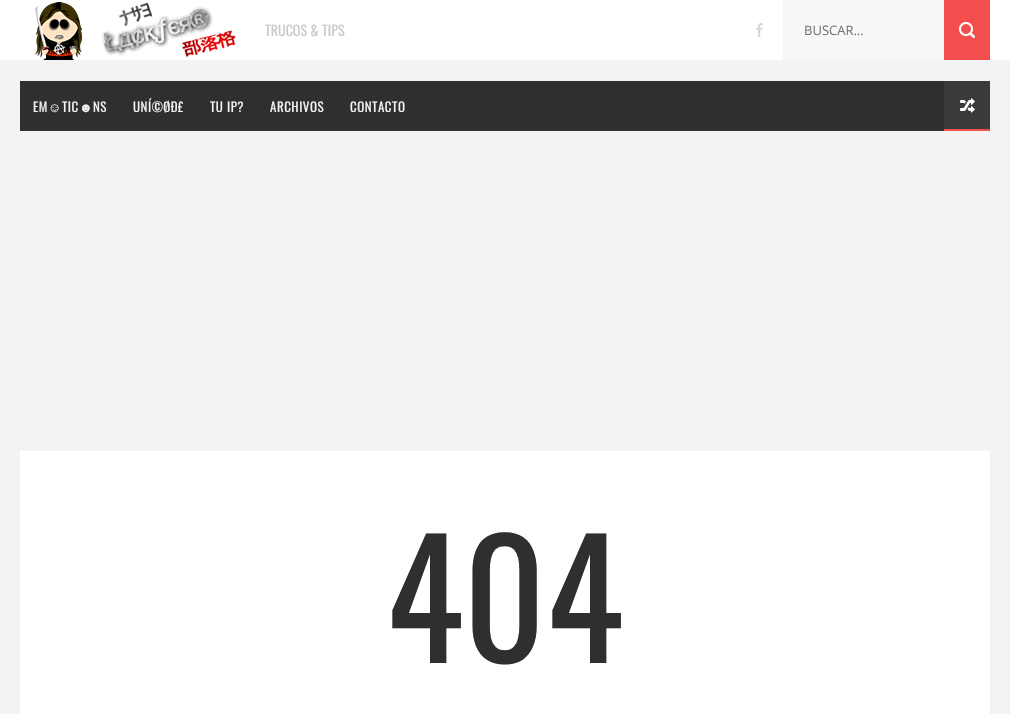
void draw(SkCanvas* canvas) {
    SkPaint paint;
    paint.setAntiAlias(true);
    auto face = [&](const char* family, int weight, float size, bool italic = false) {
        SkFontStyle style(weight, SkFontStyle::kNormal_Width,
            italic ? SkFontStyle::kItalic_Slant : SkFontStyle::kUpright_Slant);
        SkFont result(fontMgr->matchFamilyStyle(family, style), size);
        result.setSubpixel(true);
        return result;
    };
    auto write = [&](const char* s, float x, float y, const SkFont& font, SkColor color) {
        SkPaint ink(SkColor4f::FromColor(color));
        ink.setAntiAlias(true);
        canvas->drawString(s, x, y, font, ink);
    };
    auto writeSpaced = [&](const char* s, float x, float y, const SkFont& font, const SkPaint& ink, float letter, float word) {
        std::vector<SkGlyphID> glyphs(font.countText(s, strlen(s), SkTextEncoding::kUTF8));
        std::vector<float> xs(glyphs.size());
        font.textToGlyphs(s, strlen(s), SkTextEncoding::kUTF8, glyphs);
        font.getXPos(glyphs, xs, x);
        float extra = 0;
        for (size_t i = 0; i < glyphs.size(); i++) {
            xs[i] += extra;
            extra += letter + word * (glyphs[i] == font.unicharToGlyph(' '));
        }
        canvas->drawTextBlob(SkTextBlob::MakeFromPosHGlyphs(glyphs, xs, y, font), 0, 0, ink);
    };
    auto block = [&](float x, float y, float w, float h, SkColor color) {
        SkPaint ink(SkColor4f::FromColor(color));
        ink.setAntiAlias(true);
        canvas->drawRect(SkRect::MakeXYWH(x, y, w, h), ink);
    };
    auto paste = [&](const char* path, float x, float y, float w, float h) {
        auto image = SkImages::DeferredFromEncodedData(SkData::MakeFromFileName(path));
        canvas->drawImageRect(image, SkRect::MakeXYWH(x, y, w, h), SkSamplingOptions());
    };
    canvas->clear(SkColorSetRGB(243, 243, 243));
    block(0, 0, 1010, 60, SK_ColorWHITE);
    paste("pic1.png", 35, 2, 201, 58);
    auto kFont1 = face("Oswald", 400, 14);
    write("TRUCOS & TIPS", 265, 36, kFont1, SkColorSetRGB(202, 202, 202));
    paste("pic2.png", 756, 23, 7, 14);
    block(784, 0, 160, 60, SkColorSetRGB(248, 248, 248));
    block(783, 0, 1, 60, SkColorSetRGB(243, 243, 243));
    auto kFont2 = face("Open Sans", 400, 13);
    write("BUSCAR...", 804, 35, kFont2, SkColorSetRGB(117, 117, 117));
    block(944, 0, 46, 60, SkColorSetRGB(243, 78, 78));
    paste("pic3.png", 959, 22, 16, 16);
    block(20, 81, 924, 50, SkColorSetRGB(47, 47, 47));
    auto kFont3 = face("Oswald", 400, 13);
    paint.setColor(SkColorSetRGB(242, 242, 242));
    writeSpaced("EM", 33, 112, kFont3, paint, 0.5f, 0);
    auto kFont4 = face("Liberation Serif", 400, 13);
    writeSpaced("☺", 48, 112, kFont4, paint, 0.5f, 0);
    writeSpaced("TIC", 62, 112, kFont3, paint, 0.5f, 0);
    writeSpaced("☻", 79, 112, kFont4, paint, 0.5f, 0);
    writeSpaced("NS", 93, 112, kFont3, paint, 0.5f, 0);
    writeSpaced("UNÍ©ØÐ£", 133, 112, kFont3, paint, 0.5f, 0);
    writeSpaced("TU IP?", 210, 112, kFont3, paint, 0.5f, 0);
    writeSpaced("ARCHIVOS", 270, 112, kFont3, paint, 0.5f, 0);
    writeSpaced("CONTACTO", 350, 112, kFont3, paint, 0.5f, 0);
    block(944, 81, 46, 48, SkColorSetRGB(58, 58, 58));
    paste("pic4.png", 959, 98, 16, 15);
    block(944, 129, 46, 2, SkColorSetRGB(243, 78, 78));
    block(20, 451, 970, 263, SK_ColorWHITE);
    auto kFont5 = face("Oswald", 400, 160);
    write("404", 386, 663, kFont5, SkColorSetRGB(47, 47, 47));
}
